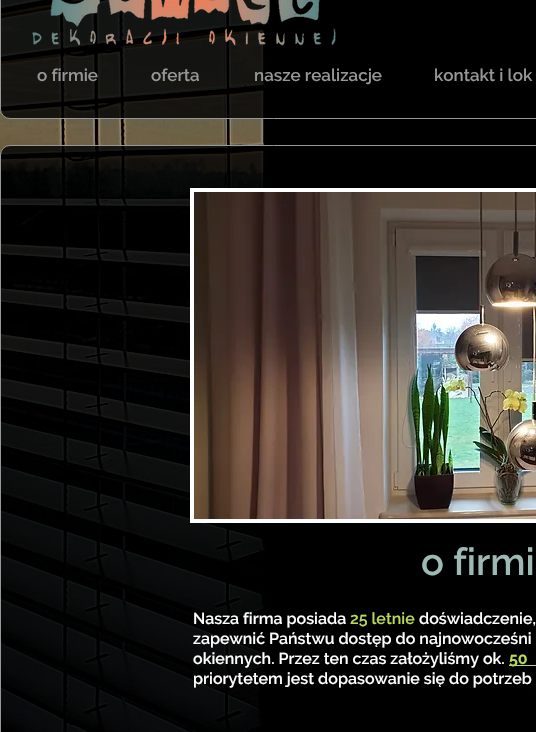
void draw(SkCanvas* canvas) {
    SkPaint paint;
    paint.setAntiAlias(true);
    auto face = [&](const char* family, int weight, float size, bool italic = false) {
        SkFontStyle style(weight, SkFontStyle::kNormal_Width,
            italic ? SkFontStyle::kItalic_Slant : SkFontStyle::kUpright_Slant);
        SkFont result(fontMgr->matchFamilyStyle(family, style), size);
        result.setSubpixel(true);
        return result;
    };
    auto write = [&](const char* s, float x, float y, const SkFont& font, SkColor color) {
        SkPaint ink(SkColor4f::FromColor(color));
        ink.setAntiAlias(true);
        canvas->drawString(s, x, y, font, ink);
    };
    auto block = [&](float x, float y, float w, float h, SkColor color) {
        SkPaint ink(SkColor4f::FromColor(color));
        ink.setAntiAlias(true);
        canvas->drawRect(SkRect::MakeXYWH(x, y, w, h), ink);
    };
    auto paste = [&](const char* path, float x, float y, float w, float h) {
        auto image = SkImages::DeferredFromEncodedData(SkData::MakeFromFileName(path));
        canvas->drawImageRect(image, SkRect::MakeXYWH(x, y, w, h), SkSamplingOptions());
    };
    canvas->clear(SK_ColorWHITE);
    paste("pic1.png", 0, 0, 536, 732);
    paint.setColor(SkColorSetARGB(204, 0, 0, 0));
    canvas->drawRoundRect(SkRect::MakeXYWH(0.5f, -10.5f, 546, 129), 9.5f, 9.5f, paint);
    paint.setStyle(SkPaint::kStroke_Style);
    paint.setStrokeWidth(1);
    paint.setColor(SkColorSetRGB(151, 151, 151));
    canvas->drawRoundRect(SkRect::MakeXYWH(0.5f, -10.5f, 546, 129), 9.5f, 9.5f, paint);
    paste("pic2.png", 32, 0, 304, 46);
    auto kFont1 = face("Raleway", 600, 17);
    write("o firmie", 37, 81, kFont1, SkColorSetRGB(151, 151, 151));
    write("oferta", 151, 81, kFont1, SkColorSetRGB(151, 151, 151));
    write("nasze realizacje", 254, 81, kFont1, SkColorSetRGB(151, 151, 151));
    write("kontakt i lok", 434, 81, kFont1, SkColorSetRGB(151, 151, 151));
    paint.setStyle(SkPaint::kFill_Style);
    paint.setColor(SkColorSetARGB(204, 0, 0, 0));
    canvas->drawRoundRect(SkRect::MakeXYWH(0.5f, 145.5f, 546, 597), 9.5f, 9.5f, paint);
    paint.setStyle(SkPaint::kStroke_Style);
    paint.setColor(SkColorSetRGB(151, 151, 151));
    canvas->drawRoundRect(SkRect::MakeXYWH(0.5f, 145.5f, 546, 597), 9.5f, 9.5f, paint);
    block(190, 188, 346, 335, SK_ColorWHITE);
    paste("pic3.png", 194, 192, 342, 327);
    auto kFont2 = face("Raleway", 600, 38);
    write("o firmi", 421, 575, kFont2, SkColorSetRGB(156, 186, 179));
    auto kFont3 = face("Raleway", 600, 16);
    write("Nasza firma posiada", 193, 624, kFont3, SK_ColorWHITE);
    write("25 letnie", 350, 624, kFont3, SkColorSetRGB(186, 218, 85));
    write("doświadczenie,", 419, 624, kFont3, SK_ColorWHITE);
    write("zapewnić Państwu dostęp do najnowocześni", 193, 644, kFont3, SK_ColorWHITE);
    write("okiennych. Przez ten czas założyliśmy ok.", 193, 664, kFont3, SK_ColorWHITE);
    block(509, 665, 27, 1, SkColorSetRGB(186, 218, 85));
    auto kFont4 = face("Raleway", 700, 16);
    write("50", 509, 664, kFont4, SkColorSetRGB(186, 218, 85));
    write("priorytetem jest dopasowanie się do potrzeb", 193, 684, kFont3, SK_ColorWHITE);
}
